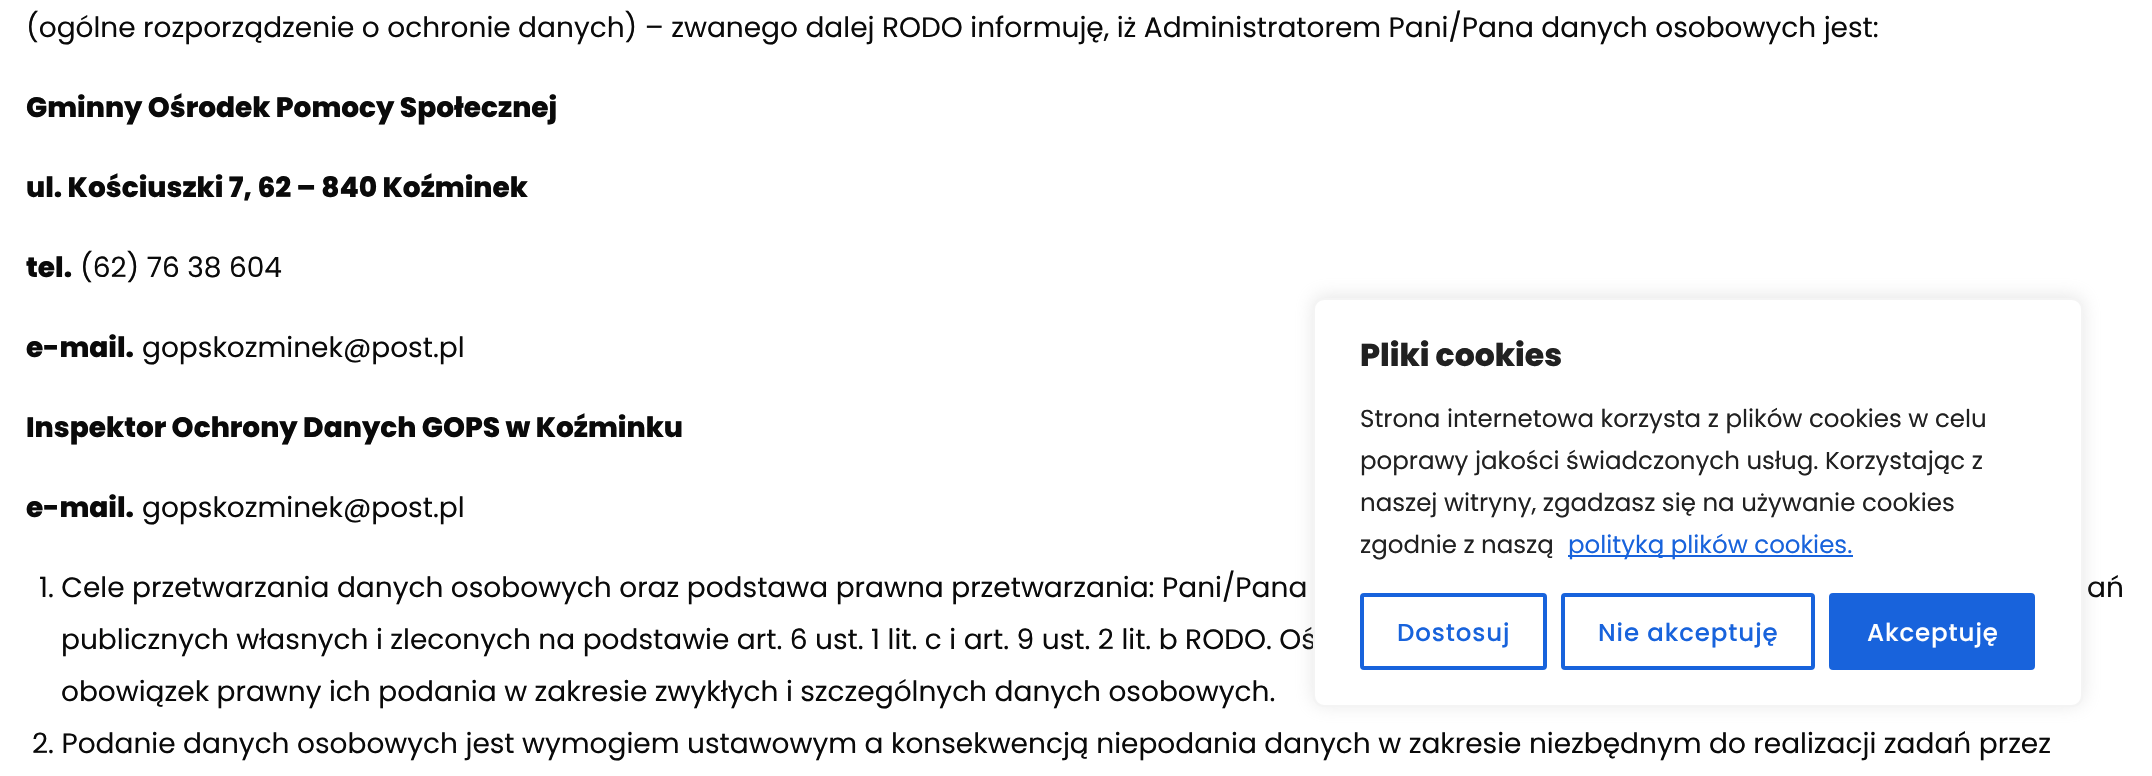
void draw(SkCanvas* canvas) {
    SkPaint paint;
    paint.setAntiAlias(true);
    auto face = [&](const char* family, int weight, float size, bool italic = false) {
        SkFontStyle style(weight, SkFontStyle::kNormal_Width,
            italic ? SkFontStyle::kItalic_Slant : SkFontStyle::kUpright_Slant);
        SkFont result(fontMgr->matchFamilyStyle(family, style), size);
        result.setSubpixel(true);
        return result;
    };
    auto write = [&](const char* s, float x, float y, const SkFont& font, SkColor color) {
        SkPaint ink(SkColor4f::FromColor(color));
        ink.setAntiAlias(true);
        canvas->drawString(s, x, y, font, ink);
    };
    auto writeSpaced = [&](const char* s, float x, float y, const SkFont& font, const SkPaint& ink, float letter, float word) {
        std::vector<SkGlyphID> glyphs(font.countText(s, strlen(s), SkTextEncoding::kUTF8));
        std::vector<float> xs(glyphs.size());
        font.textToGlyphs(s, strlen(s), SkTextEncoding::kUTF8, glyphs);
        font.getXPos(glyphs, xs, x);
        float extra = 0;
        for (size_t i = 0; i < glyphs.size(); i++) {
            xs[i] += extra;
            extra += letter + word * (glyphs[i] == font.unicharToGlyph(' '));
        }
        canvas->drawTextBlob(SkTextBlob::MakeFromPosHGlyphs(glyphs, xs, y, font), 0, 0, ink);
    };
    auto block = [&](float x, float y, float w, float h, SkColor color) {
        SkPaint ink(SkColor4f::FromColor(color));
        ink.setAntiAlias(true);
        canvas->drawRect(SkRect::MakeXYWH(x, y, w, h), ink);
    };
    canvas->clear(SK_ColorWHITE);
    auto kFont1 = face("Poppins", 400, 28);
    write("(ogólne rozporządzenie o ochronie danych) – zwanego dalej RODO informuję, iż Administratorem Pani/Pana danych osobowych jest:", 26, 37, kFont1, SkColorSetRGB(10, 10, 10));
    auto kFont2 = face("Poppins", 800, 28);
    write("Gminny Ośrodek Pomocy Społecznej", 26, 117, kFont2, SkColorSetRGB(10, 10, 10));
    write("ul. Kościuszki 7, 62 – 840 Koźminek", 26, 197, kFont2, SkColorSetRGB(10, 10, 10));
    write("tel.", 26, 277, kFont2, SkColorSetRGB(10, 10, 10));
    write("(62) 76 38 604", 80, 277, kFont1, SkColorSetRGB(10, 10, 10));
    write("e-mail.", 26, 357, kFont2, SkColorSetRGB(10, 10, 10));
    write("gopskozminek@post.pl", 142, 357, kFont1, SkColorSetRGB(10, 10, 10));
    write("Inspektor Ochrony Danych GOPS w Koźminku", 26, 437, kFont2, SkColorSetRGB(10, 10, 10));
    write("e-mail.", 26, 517, kFont2, SkColorSetRGB(10, 10, 10));
    write("gopskozminek@post.pl", 142, 517, kFont1, SkColorSetRGB(10, 10, 10));
    write("1. Cele przetwarzania danych osobowych oraz podstawa prawna przetwarzania: Pani/Pana", 39, 597, kFont1, SkColorSetRGB(10, 10, 10));
    write("ań", 2087, 597, kFont1, SkColorSetRGB(10, 10, 10));
    write("publicznych własnych i zleconych na podstawie art. 6 ust. 1 lit. c i art. 9 ust. 2 lit. b RODO. Oś", 61, 649, kFont1, SkColorSetRGB(10, 10, 10));
    write("obowiązek prawny ich podania w zakresie zwykłych i szczególnych danych osobowych.", 61, 701, kFont1, SkColorSetRGB(10, 10, 10));
    write("2. Podanie danych osobowych jest wymogiem ustawowym a konsekwencją niepodania danych w zakresie niezbędnym do realizacji zadań przez", 32, 753, kFont1, SkColorSetRGB(10, 10, 10));
    paint.setColor(SkColorSetARGB(77, 172, 171, 171));
    paint.setMaskFilter(SkMaskFilter::MakeBlur(kNormal_SkBlurStyle, 9));
    canvas->drawRoundRect(SkRect::MakeXYWH(1313, 296, 770, 409), 11, 11, paint);
    paint.setMaskFilter(nullptr);
    paint.setColor(SK_ColorWHITE);
    canvas->drawRoundRect(SkRect::MakeXYWH(1314, 299, 768, 407), 10, 10, paint);
    paint.setStyle(SkPaint::kStroke_Style);
    paint.setStrokeWidth(2);
    paint.setColor(SkColorSetRGB(244, 244, 244));
    canvas->drawRoundRect(SkRect::MakeXYWH(1314, 299, 768, 407), 10, 10, paint);
    auto kFont3 = face("Poppins", 800, 31.5f);
    write("Pliki cookies", 1360, 366, kFont3, SkColorSetRGB(33, 33, 33));
    auto kFont4 = face("Poppins", 400, 24.5f);
    write("Strona internetowa korzysta z plików cookies w celu", 1360, 427, kFont4, SkColorSetRGB(33, 33, 33));
    write("poprawy jakości świadczonych usług. Korzystając z", 1360, 469, kFont4, SkColorSetRGB(33, 33, 33));
    write("naszej witryny, zgadzasz się na używanie cookies", 1360, 511, kFont4, SkColorSetRGB(33, 33, 33));
    write("zgodnie z naszą", 1360, 553, kFont4, SkColorSetRGB(33, 33, 33));
    block(1568, 555, 285, 2, SkColorSetRGB(24, 99, 220));
    write("polityką plików cookies.", 1568, 553, kFont4, SkColorSetRGB(24, 99, 220));
    paint.setStrokeWidth(4);
    paint.setColor(SkColorSetRGB(24, 99, 220));
    canvas->drawRoundRect(SkRect::MakeXYWH(1362, 595, 183, 73), 2, 2, paint);
    auto kFont5 = face("Poppins", 500, 24.5f);
    paint.setStyle(SkPaint::kFill_Style);
    writeSpaced("Dostosuj", 1397, 641, kFont5, paint, 0.9f, 0);
    paint.setStyle(SkPaint::kStroke_Style);
    canvas->drawRoundRect(SkRect::MakeXYWH(1563, 595, 250, 73), 2, 2, paint);
    paint.setStyle(SkPaint::kFill_Style);
    writeSpaced("Nie akceptuję", 1598, 641, kFont5, paint, 0.9f, 0);
    canvas->drawRoundRect(SkRect::MakeXYWH(1831, 595, 202, 73), 2, 2, paint);
    paint.setStyle(SkPaint::kStroke_Style);
    canvas->drawRoundRect(SkRect::MakeXYWH(1831, 595, 202, 73), 2, 2, paint);
    paint.setStyle(SkPaint::kFill_Style);
    paint.setColor(SK_ColorWHITE);
    writeSpaced("Akceptuję", 1867, 641, kFont5, paint, 0.9f, 0);
}
